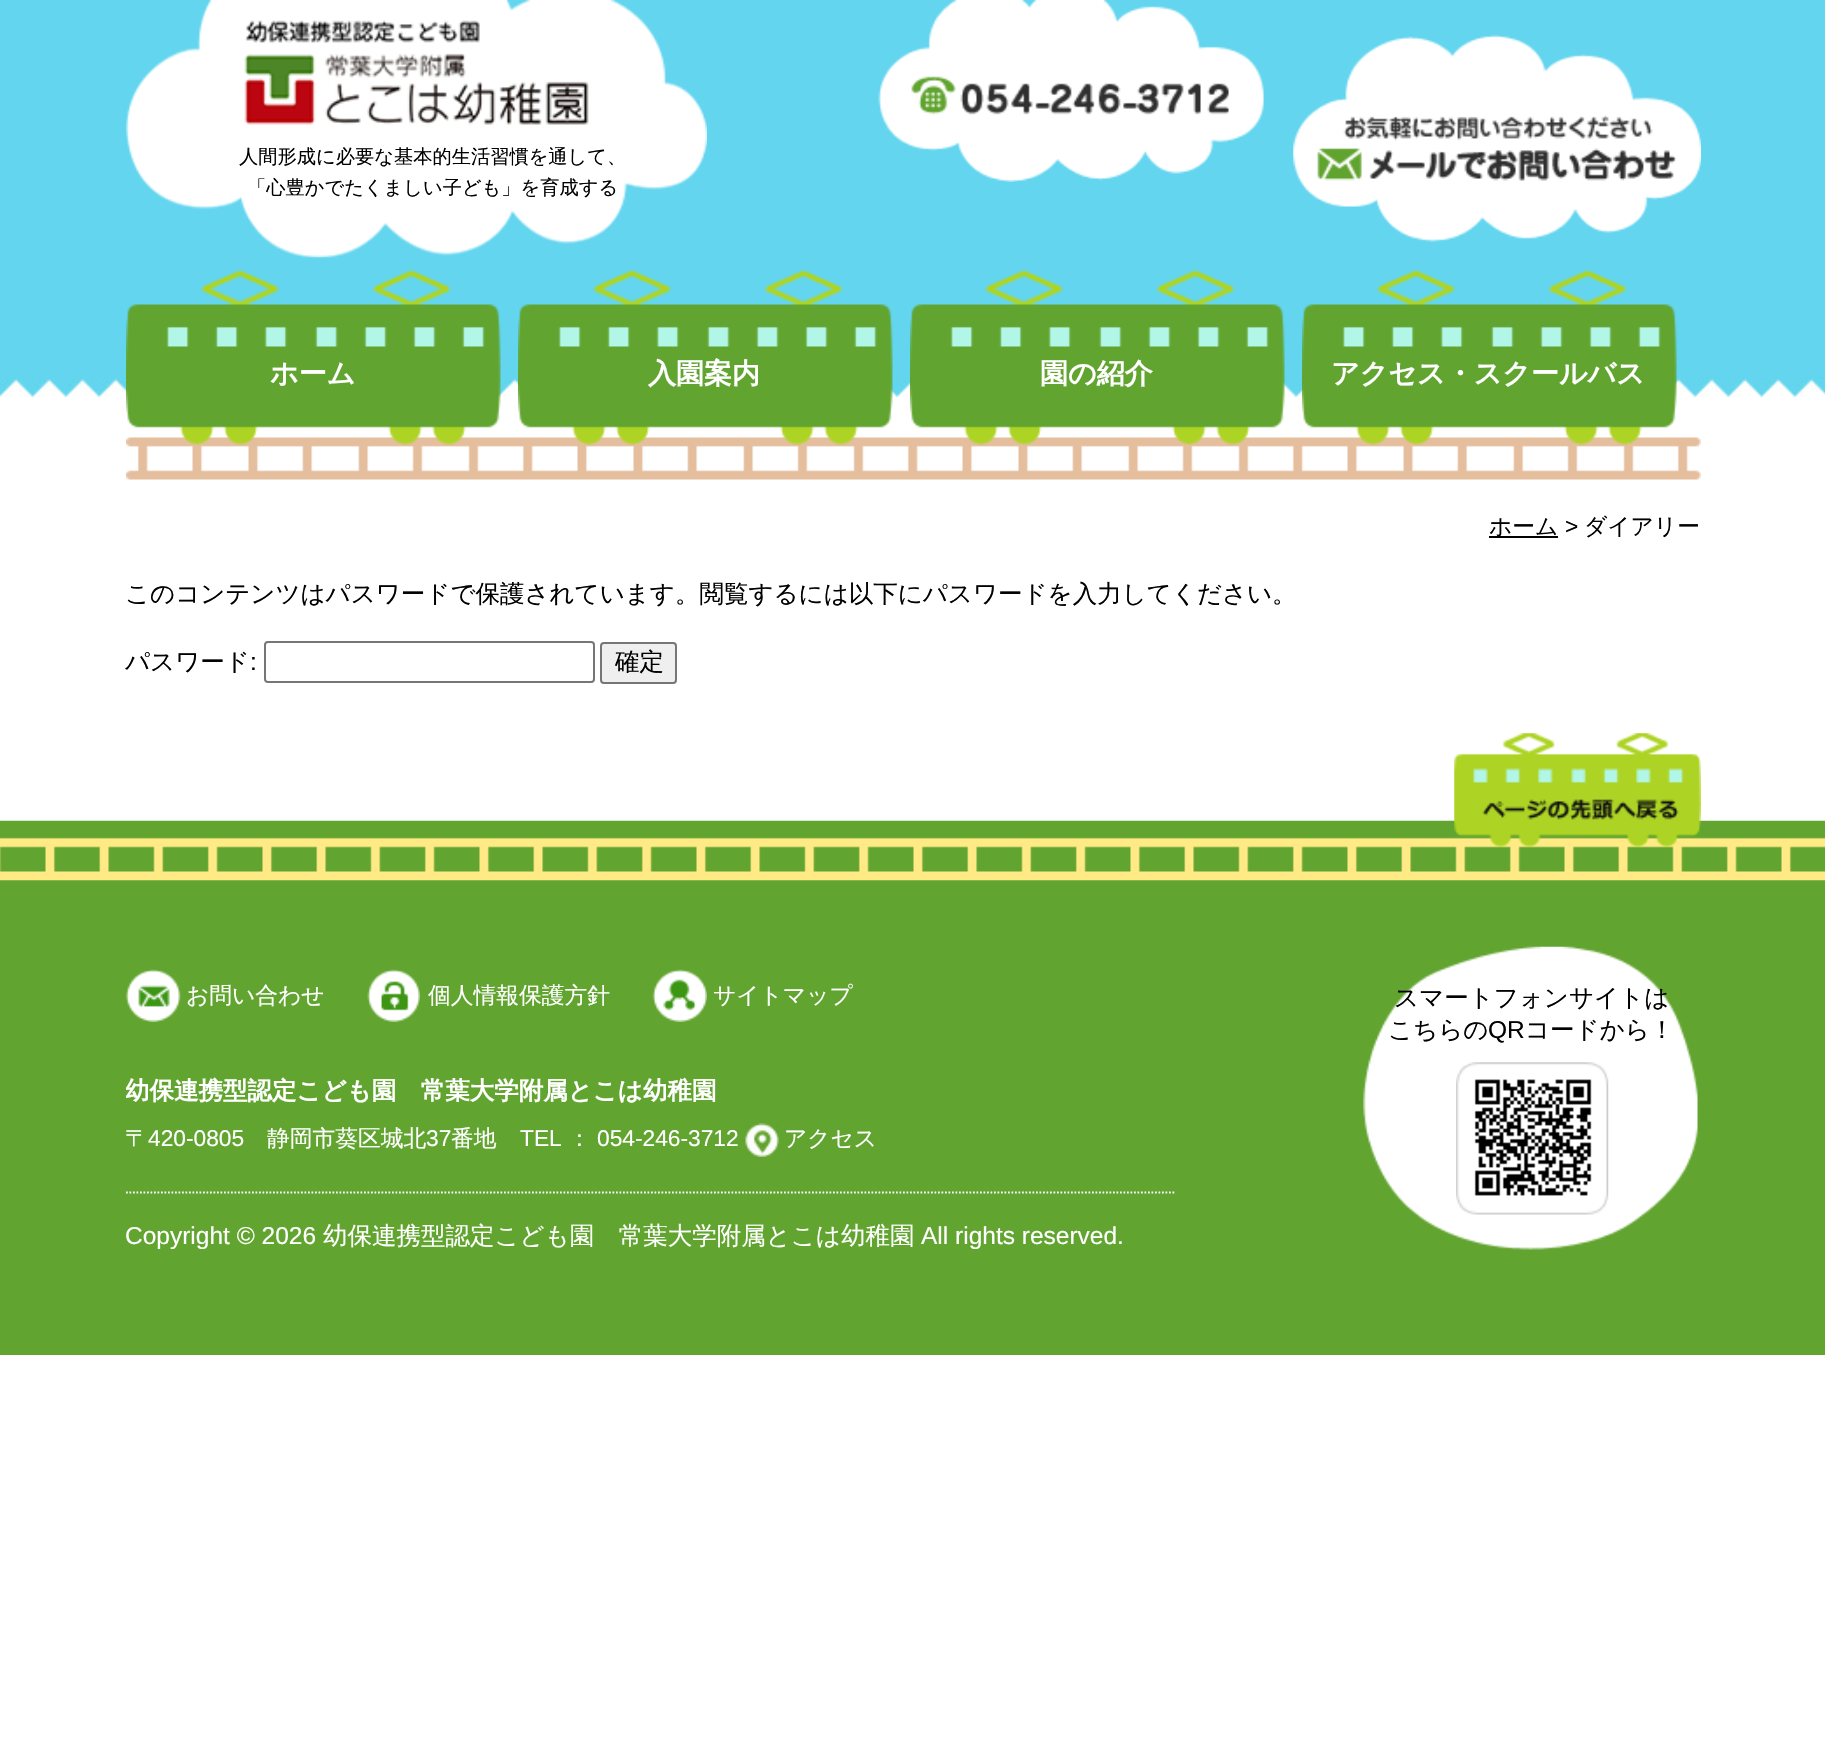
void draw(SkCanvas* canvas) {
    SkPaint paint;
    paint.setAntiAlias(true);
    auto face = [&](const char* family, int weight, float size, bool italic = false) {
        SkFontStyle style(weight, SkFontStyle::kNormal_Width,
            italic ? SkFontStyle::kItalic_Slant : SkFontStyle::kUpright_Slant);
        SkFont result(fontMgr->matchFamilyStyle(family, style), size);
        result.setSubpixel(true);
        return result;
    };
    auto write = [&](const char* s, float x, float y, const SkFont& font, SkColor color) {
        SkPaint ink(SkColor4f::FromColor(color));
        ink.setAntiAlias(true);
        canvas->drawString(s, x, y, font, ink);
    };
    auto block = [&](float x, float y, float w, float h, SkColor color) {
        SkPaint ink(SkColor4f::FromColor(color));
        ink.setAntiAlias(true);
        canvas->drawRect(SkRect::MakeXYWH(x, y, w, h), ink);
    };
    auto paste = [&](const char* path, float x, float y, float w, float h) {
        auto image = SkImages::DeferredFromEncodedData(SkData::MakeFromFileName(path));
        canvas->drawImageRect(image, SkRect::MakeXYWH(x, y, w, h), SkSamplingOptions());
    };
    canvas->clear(SK_ColorWHITE);
    paste("pic1.png", 0, 0, 1825, 398);
    paste("pic2.png", 126, 0, 581, 258);
    auto kFont1 = face("WenQuanYi Zen Hei", 500, 19.25f);
    write("人間形成に必要な基本的生活習慣を通して、", 239, 163, kFont1, SkColorSetRGB(1, 1, 1));
    write("「心豊かでたくましい子ども」を育成する", 247, 194, kFont1, SkColorSetRGB(1, 1, 1));
    paste("pic3.png", 878, 0, 387, 182);
    paste("pic4.png", 1293, 35, 408, 207);
    paste("pic5.png", 126, 437, 1575, 43);
    paste("pic6.png", 126, 269, 375, 176);
    auto kFont2 = face("WenQuanYi Zen Hei", 700, 28);
    write("ホーム", 270, 383, kFont2, SK_ColorWHITE);
    paste("pic7.png", 518, 269, 375, 176);
    write("入園案内", 648, 383, kFont2, SK_ColorWHITE);
    paste("pic8.png", 910, 269, 375, 176);
    write("園の紹介", 1040, 383, kFont2, SK_ColorWHITE);
    paste("pic9.png", 1302, 269, 375, 176);
    write("アクセス・スクールバス", 1331, 383, kFont2, SK_ColorWHITE);
    block(1489, 536, 69, 2, SkColorSetRGB(1, 1, 1));
    auto kFont3 = face("WenQuanYi Zen Hei", 500, 22.75f);
    write("ホーム", 1489, 534, kFont3, SkColorSetRGB(1, 1, 1));
    auto kFont4 = face("Liberation Sans", 400, 22.75f);
    write(">", 1565, 534, kFont4, SkColorSetRGB(1, 1, 1));
    write("ダイアリー", 1584, 534, kFont3, SkColorSetRGB(1, 1, 1));
    auto kFont5 = face("WenQuanYi Zen Hei", 500, 24.5f);
    write("このコンテンツはパスワードで保護されています。閲覧するには以下にパスワードを入力してください。", 125, 602, kFont5, SkColorSetRGB(1, 1, 1));
    write("パスワード", 125, 670, kFont5, SkColorSetRGB(1, 1, 1));
    auto kFont6 = face("Liberation Sans", 400, 24.5f);
    write(":", 250, 670, kFont6, SkColorSetRGB(1, 1, 1));
    paint.setStyle(SkPaint::kStroke_Style);
    paint.setStrokeWidth(2);
    paint.setColor(SkColorSetRGB(118, 118, 118));
    canvas->drawRoundRect(SkRect::MakeXYWH(265, 642, 329, 40), 3, 3, paint);
    paint.setStyle(SkPaint::kFill_Style);
    paint.setColor(SkColorSetRGB(239, 239, 239));
    canvas->drawRoundRect(SkRect::MakeXYWH(601, 643, 75, 40), 3, 3, paint);
    paint.setStyle(SkPaint::kStroke_Style);
    paint.setColor(SkColorSetRGB(118, 118, 118));
    canvas->drawRoundRect(SkRect::MakeXYWH(601, 643, 75, 40), 3, 3, paint);
    write("確定", 615, 670, kFont5, SkColorSetRGB(1, 1, 1));
    block(0, 880, 1825, 475, SkColorSetRGB(97, 164, 47));
    paste("pic10.png", 0, 820, 1825, 61);
    paste("pic11.png", 1454, 733, 247, 114);
    paste("pic12.png", 126, 969, 55, 53);
    write("お問い合わせ", 186, 1003, kFont3, SK_ColorWHITE);
    paste("pic13.png", 367, 969, 53, 53);
    write("個人情報保護方針", 428, 1003, kFont3, SK_ColorWHITE);
    paste("pic14.png", 652, 969, 55, 53);
    write("サイトマップ", 713, 1003, kFont3, SK_ColorWHITE);
    canvas->save();
    canvas->clipRect(SkRect::MakeXYWH(126, 943, 1050, 335));
    auto kFont7 = face("WenQuanYi Zen Hei", 700, 24.5f);
    write("幼保連携型認定こども園　常葉大学附属とこは幼稚園", 125, 1099, kFont7, SK_ColorWHITE);
    canvas->restore();
    write("〒", 125, 1146, kFont3, SK_ColorWHITE);
    write("420-0805", 148, 1146, kFont4, SK_ColorWHITE);
    write("静岡市葵区城北", 267, 1146, kFont3, SK_ColorWHITE);
    write("37", 426, 1146, kFont4, SK_ColorWHITE);
    write("番地", 451, 1146, kFont3, SK_ColorWHITE);
    write("TEL", 520, 1146, kFont4, SK_ColorWHITE);
    write("：", 568, 1146, kFont3, SK_ColorWHITE);
    write("054-246-3712", 597, 1146, kFont4, SK_ColorWHITE);
    paste("pic15.png", 745, 1123, 34, 34);
    write("アクセス", 784, 1146, kFont3, SK_ColorWHITE);
    paint.setStrokeWidth(1.8f);
    paint.setColor(SK_ColorWHITE);
    paint.setPathEffect(SkDashPathEffect::Make({{1.75f, 1.75f}}, 0));
    canvas->drawPath(SkPathBuilder().moveTo(126, 1192.5f).lineTo(1176, 1192.5f).detach(), paint);
    paint.setPathEffect(nullptr);
    write("Copyright © 2026", 125, 1244, kFont6, SK_ColorWHITE);
    write("幼保連携型認定こども園　常葉大学附属とこは幼稚園", 323, 1244, kFont5, SK_ColorWHITE);
    write("All rights reserved.", 921, 1244, kFont6, SK_ColorWHITE);
    paste("pic16.png", 1363, 946, 335, 304);
    write("スマートフォンサイトは", 1394, 1006, kFont5, SkColorSetRGB(1, 1, 1));
    write("こちらの", 1388, 1038, kFont5, SkColorSetRGB(1, 1, 1));
    write("QR", 1488, 1038, kFont6, SkColorSetRGB(1, 1, 1));
    write("コードから！", 1525, 1038, kFont5, SkColorSetRGB(1, 1, 1));
    paste("pic17.png", 1456, 1062, 153, 153);
}
